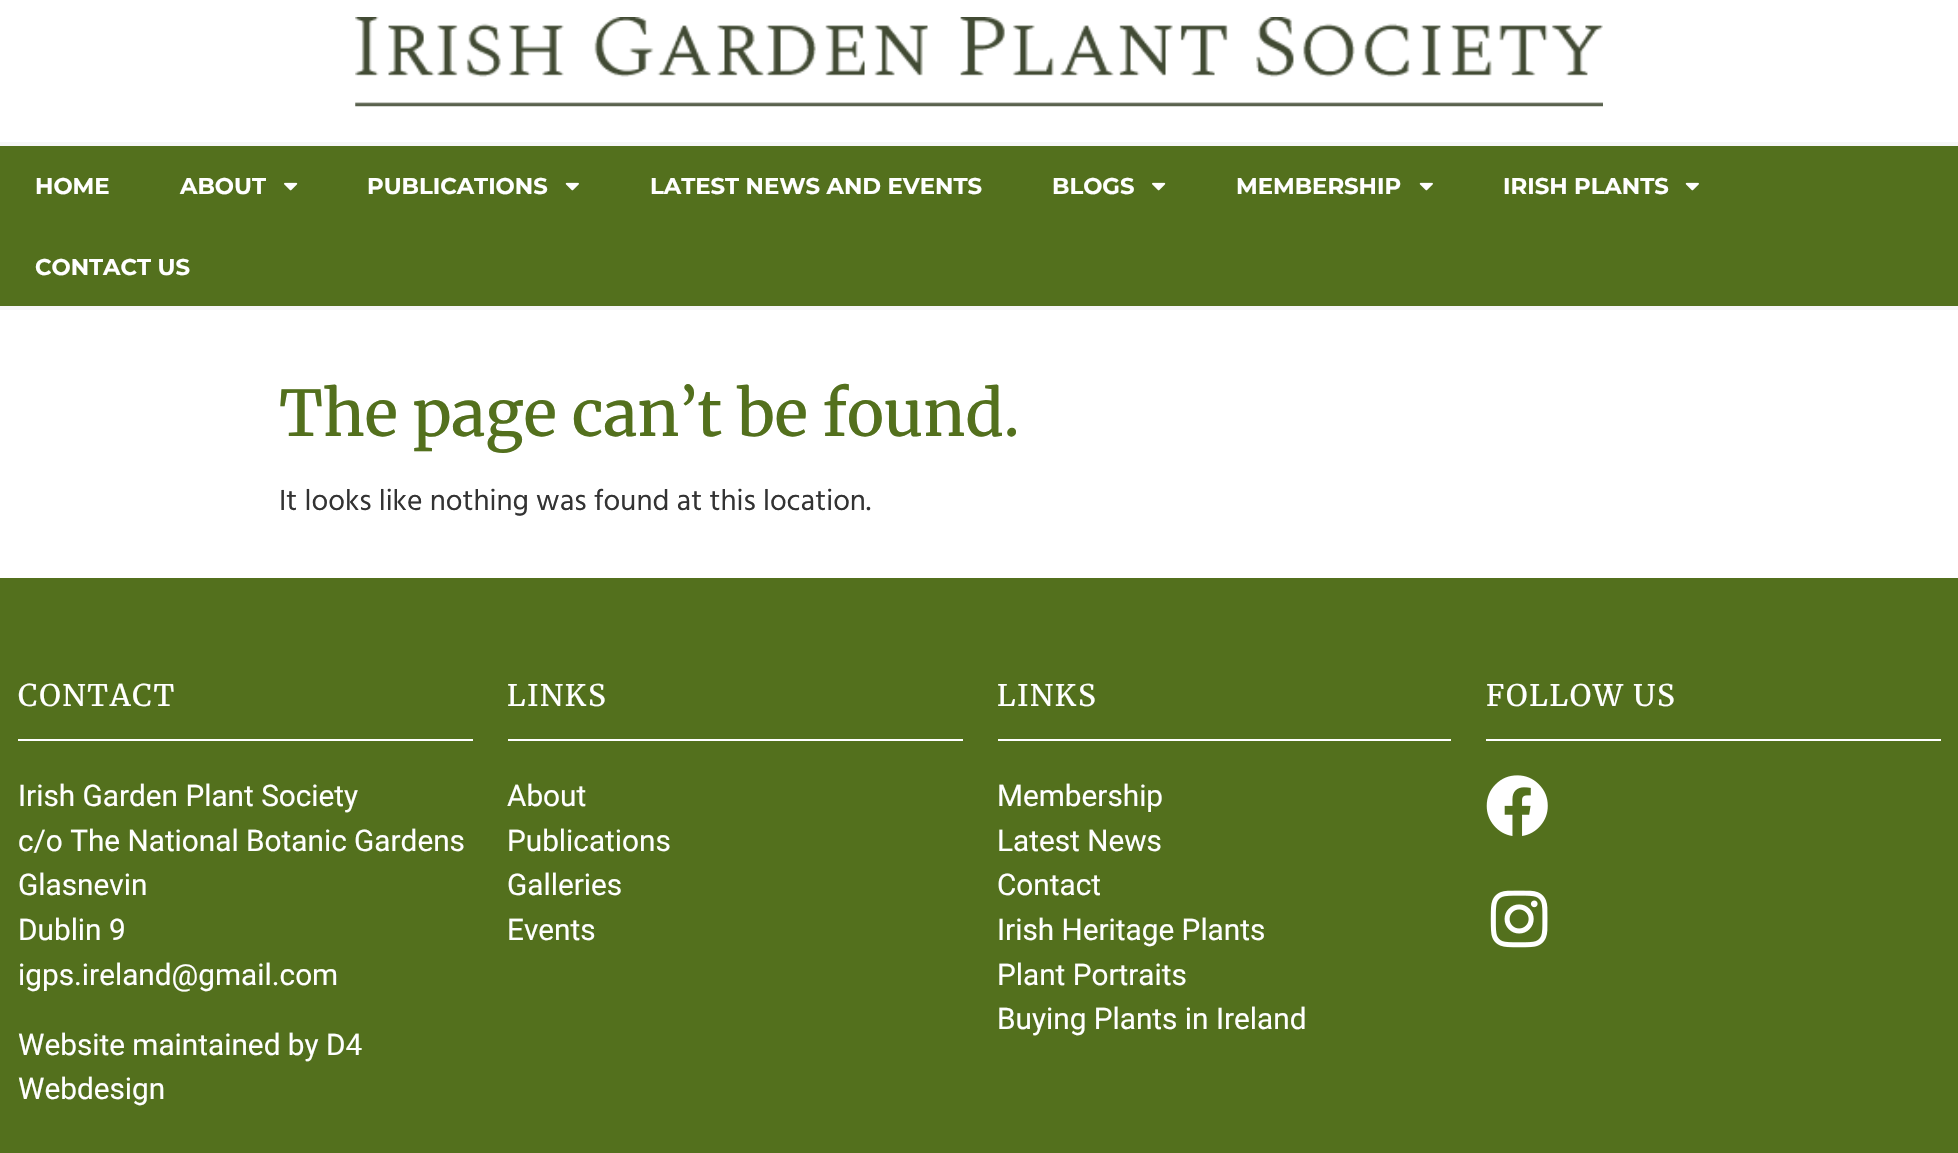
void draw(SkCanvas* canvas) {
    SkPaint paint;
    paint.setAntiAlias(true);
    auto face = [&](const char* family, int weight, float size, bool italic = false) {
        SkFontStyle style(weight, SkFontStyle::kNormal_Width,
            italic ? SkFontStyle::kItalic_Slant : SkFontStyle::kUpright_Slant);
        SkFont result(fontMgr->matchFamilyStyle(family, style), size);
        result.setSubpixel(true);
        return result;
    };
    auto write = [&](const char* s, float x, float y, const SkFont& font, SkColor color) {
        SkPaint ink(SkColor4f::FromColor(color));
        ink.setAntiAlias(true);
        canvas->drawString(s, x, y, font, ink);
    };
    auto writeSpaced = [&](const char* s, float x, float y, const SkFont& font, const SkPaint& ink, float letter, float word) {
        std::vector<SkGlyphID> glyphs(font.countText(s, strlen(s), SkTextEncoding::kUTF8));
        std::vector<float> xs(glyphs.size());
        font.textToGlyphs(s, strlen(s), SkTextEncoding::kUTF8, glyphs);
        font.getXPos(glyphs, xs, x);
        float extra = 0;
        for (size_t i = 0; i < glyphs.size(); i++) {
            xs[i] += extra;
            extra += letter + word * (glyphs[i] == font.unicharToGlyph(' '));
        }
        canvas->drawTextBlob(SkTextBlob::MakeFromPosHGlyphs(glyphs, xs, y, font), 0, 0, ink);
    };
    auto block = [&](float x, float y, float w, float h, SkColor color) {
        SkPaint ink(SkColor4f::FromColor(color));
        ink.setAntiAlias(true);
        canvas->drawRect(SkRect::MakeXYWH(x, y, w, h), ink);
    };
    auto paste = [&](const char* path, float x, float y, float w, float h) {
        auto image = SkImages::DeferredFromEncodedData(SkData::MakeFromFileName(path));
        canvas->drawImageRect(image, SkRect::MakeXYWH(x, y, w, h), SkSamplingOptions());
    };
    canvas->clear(SK_ColorWHITE);
    paste("pic1.png", 355, 17, 1248, 90);
    block(0, 146, 1958, 160, SkColorSetRGB(83, 112, 29));
    block(0, 142, 1958, 4, SkColorSetRGB(247, 247, 247));
    block(0, 306, 1958, 4, SkColorSetRGB(247, 247, 247));
    auto kFont1 = face("Montserrat", 700, 22.75f);
    write("HOME", 35, 194, kFont1, SK_ColorWHITE);
    write("ABOUT", 180, 194, kFont1, SK_ColorWHITE);
    paste("pic2.png", 284, 182, 14, 9);
    write("PUBLICATIONS", 367, 194, kFont1, SK_ColorWHITE);
    paste("pic3.png", 565, 182, 14, 9);
    write("LATEST NEWS AND EVENTS", 650, 194, kFont1, SK_ColorWHITE);
    write("BLOGS", 1052, 194, kFont1, SK_ColorWHITE);
    paste("pic2.png", 1152, 182, 14, 9);
    write("MEMBERSHIP", 1236, 194, kFont1, SK_ColorWHITE);
    paste("pic3.png", 1419, 182, 14, 9);
    write("IRISH PLANTS", 1503, 194, kFont1, SK_ColorWHITE);
    paste("pic3.png", 1685, 182, 14, 9);
    write("CONTACT US", 35, 275, kFont1, SK_ColorWHITE);
    auto kFont2 = face("Merriweather", 500, 63);
    write("The page can’t be found.", 279, 436, kFont2, SkColorSetRGB(83, 112, 29));
    auto kFont3 = face("Hind", 400, 29.75f);
    write("It looks like nothing was found at this location.", 279, 510, kFont3, SkColorSetRGB(51, 51, 51));
    block(0, 578, 1958, 575, SkColorSetRGB(83, 112, 29));
    block(18, 739, 455, 2, SK_ColorWHITE);
    auto kFont4 = face("Merriweather", 400, 29.75f);
    paint.setColor(SK_ColorWHITE);
    writeSpaced("CONTACT", 18, 706, kFont4, paint, 1.75f, 0);
    auto kFont5 = face("Roboto", 400, 29.75f);
    write("Irish Garden Plant Society", 18, 806, kFont5, SK_ColorWHITE);
    write("c/o The National Botanic Gardens", 18, 851, kFont5, SK_ColorWHITE);
    write("Glasnevin", 18, 895, kFont5, SK_ColorWHITE);
    write("Dublin 9", 18, 940, kFont5, SK_ColorWHITE);
    write("igps.ireland@gmail.com", 18, 985, kFont5, SK_ColorWHITE);
    write("Website maintained by D4", 18, 1055, kFont5, SK_ColorWHITE);
    write("Webdesign", 18, 1099, kFont5, SK_ColorWHITE);
    block(508, 739, 455, 2, SK_ColorWHITE);
    writeSpaced("LINKS", 507, 706, kFont4, paint, 1.75f, 0);
    write("About", 507, 806, kFont5, SK_ColorWHITE);
    write("Publications", 507, 851, kFont5, SK_ColorWHITE);
    write("Galleries", 507, 895, kFont5, SK_ColorWHITE);
    write("Events", 507, 940, kFont5, SK_ColorWHITE);
    block(998, 739, 453, 2, SK_ColorWHITE);
    writeSpaced("LINKS", 997, 706, kFont4, paint, 1.75f, 0);
    write("Membership", 997, 806, kFont5, SK_ColorWHITE);
    write("Latest News", 997, 851, kFont5, SK_ColorWHITE);
    write("Contact", 997, 895, kFont5, SK_ColorWHITE);
    write("Irish Heritage Plants", 997, 940, kFont5, SK_ColorWHITE);
    write("Plant Portraits", 997, 985, kFont5, SK_ColorWHITE);
    write("Buying Plants in Ireland", 997, 1029, kFont5, SK_ColorWHITE);
    block(1486, 739, 455, 2, SK_ColorWHITE);
    writeSpaced("FOLLOW US", 1486, 706, kFont4, paint, 1.75f, 0);
    paste("pic4.png", 1486, 775, 62, 61);
    paste("pic5.png", 1490, 890, 58, 58);
}
